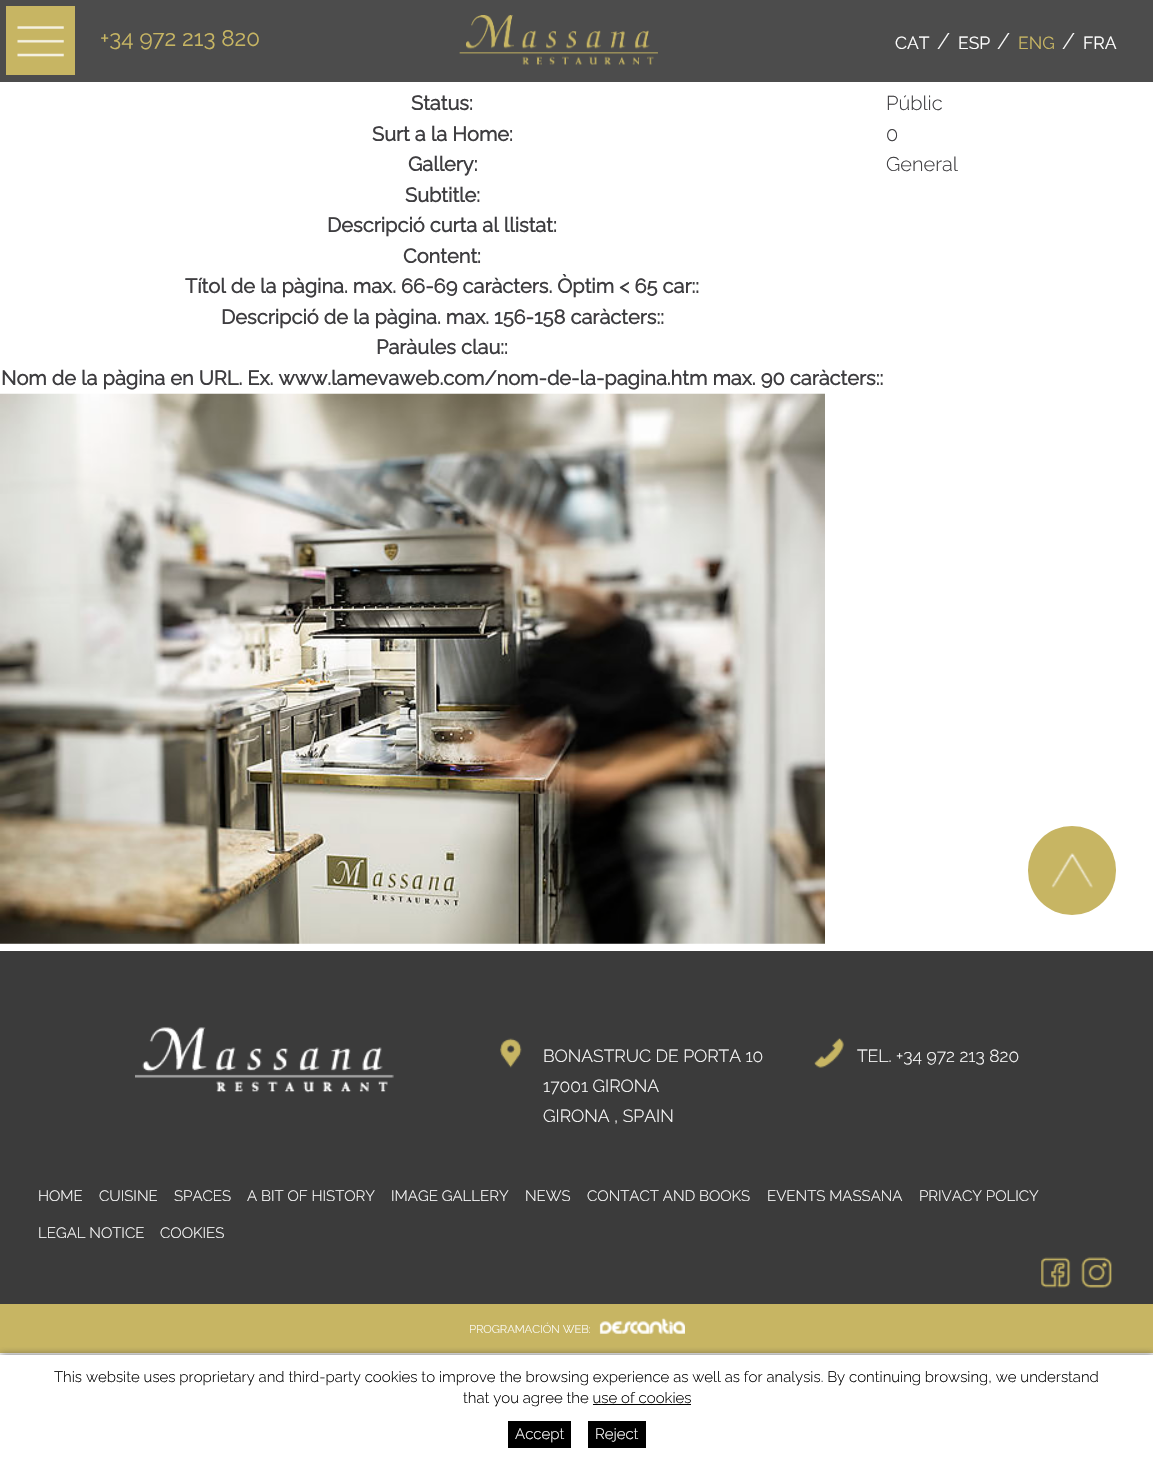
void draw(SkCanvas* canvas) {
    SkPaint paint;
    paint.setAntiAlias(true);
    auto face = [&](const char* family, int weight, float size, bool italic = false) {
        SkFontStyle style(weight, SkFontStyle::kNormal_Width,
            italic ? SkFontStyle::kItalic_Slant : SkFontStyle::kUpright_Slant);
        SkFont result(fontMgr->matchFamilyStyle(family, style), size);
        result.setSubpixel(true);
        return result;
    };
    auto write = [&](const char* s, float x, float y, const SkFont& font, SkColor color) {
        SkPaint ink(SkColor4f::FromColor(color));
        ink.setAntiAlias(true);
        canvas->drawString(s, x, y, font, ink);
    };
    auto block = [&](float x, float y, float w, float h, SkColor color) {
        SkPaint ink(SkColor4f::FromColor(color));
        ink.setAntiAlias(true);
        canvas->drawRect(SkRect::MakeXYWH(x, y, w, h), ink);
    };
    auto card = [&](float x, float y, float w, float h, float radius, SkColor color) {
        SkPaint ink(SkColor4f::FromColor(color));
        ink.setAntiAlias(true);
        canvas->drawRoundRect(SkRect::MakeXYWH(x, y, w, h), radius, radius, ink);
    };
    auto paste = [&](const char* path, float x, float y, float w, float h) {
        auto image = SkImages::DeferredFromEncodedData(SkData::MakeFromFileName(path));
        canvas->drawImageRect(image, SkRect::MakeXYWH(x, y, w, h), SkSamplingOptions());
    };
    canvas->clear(SK_ColorWHITE);
    block(0, 0, 1153, 82, SkColorSetARGB(179, 0, 0, 0));
    block(6, 6, 69, 69, SkColorSetRGB(199, 181, 99));
    paste("pic1.png", 17, 26, 47, 31);
    auto kFont1 = face("Raleway", 400, 22.5f);
    write("+34 972 213 820", 100, 46, kFont1, SkColorSetRGB(199, 181, 99));
    paste("pic2.png", 459, 15, 199, 50);
    auto kFont2 = face("Raleway", 400, 17.5f);
    write("CAT", 895, 49, kFont2, SK_ColorWHITE);
    auto kFont3 = face("Raleway", 300, 22.5f);
    write("/", 937, 49, kFont3, SK_ColorWHITE);
    write("ESP", 958, 49, kFont2, SK_ColorWHITE);
    write("/", 997, 49, kFont3, SK_ColorWHITE);
    write("ENG", 1018, 49, kFont2, SkColorSetRGB(199, 181, 99));
    write("/", 1062, 49, kFont3, SK_ColorWHITE);
    write("FRA", 1083, 49, kFont2, SK_ColorWHITE);
    auto kFont4 = face("Raleway", 700, 20);
    write("Status:", 411, 110, kFont4, SkColorSetRGB(62, 61, 64));
    auto kFont5 = face("Raleway", 300, 20);
    write("Públic", 886, 110, kFont5, SkColorSetRGB(62, 61, 64));
    write("Surt a la Home:", 372, 141, kFont4, SkColorSetRGB(62, 61, 64));
    write("0", 886, 141, kFont5, SkColorSetRGB(62, 61, 64));
    write("Gallery:", 408, 171, kFont4, SkColorSetRGB(62, 61, 64));
    write("General", 886, 171, kFont5, SkColorSetRGB(62, 61, 64));
    write("Subtitle:", 405, 202, kFont4, SkColorSetRGB(62, 61, 64));
    write("Descripció curta al llistat:", 327, 232, kFont4, SkColorSetRGB(62, 61, 64));
    write("Content:", 403, 263, kFont4, SkColorSetRGB(62, 61, 64));
    write("Títol de la pàgina. max. 66-69 caràcters. Òptim < 65 car::", 185, 293, kFont4, SkColorSetRGB(62, 61, 64));
    write("Descripció de la pàgina. max. 156-158 caràcters::", 221, 324, kFont4, SkColorSetRGB(62, 61, 64));
    write("Paràules clau::", 376, 354, kFont4, SkColorSetRGB(62, 61, 64));
    write("Nom de la pàgina en URL. Ex. www.lamevaweb.com/nom-de-la-pagina.htm max. 90 caràcters::", 1, 385, kFont4, SkColorSetRGB(62, 61, 64));
    paste("pic3.png", 0, 393, 825, 551);
    card(1028, 826, 88, 89, 44, SkColorSetRGB(199, 181, 99));
    paste("pic4.png", 1051, 853, 42, 35);
    block(0, 951, 1153, 353, SkColorSetRGB(59, 59, 59));
    paste("pic5.png", 135, 1027, 259, 66);
    paste("pic6.png", 500, 1038, 22, 30);
    auto kFont6 = face("Raleway", 300, 17.5f);
    write("BONASTRUC DE PORTA 10", 543, 1062, kFont6, SK_ColorWHITE);
    write("17001 GIRONA", 543, 1092, kFont6, SK_ColorWHITE);
    write("GIRONA , SPAIN", 543, 1122, kFont6, SK_ColorWHITE);
    paste("pic7.png", 814, 1038, 30, 30);
    write("TEL. +34 972 213 820", 857, 1062, kFont6, SK_ColorWHITE);
    auto kFont7 = face("Raleway", 300, 15);
    write("HOME", 38, 1201, kFont7, SK_ColorWHITE);
    write("CUISINE", 99, 1201, kFont7, SK_ColorWHITE);
    write("SPACES", 174, 1201, kFont7, SK_ColorWHITE);
    write("A BIT OF HISTORY", 247, 1201, kFont7, SK_ColorWHITE);
    write("IMAGE GALLERY", 391, 1201, kFont7, SK_ColorWHITE);
    write("NEWS", 525, 1201, kFont7, SK_ColorWHITE);
    write("CONTACT AND BOOKS", 587, 1201, kFont7, SK_ColorWHITE);
    write("EVENTS MASSANA", 767, 1201, kFont7, SK_ColorWHITE);
    write("PRIVACY POLICY", 919, 1201, kFont7, SK_ColorWHITE);
    write("LEGAL NOTICE", 38, 1238, kFont7, SK_ColorWHITE);
    write("COOKIES", 160, 1238, kFont7, SK_ColorWHITE);
    paste("pic8.png", 1041, 1257, 30, 31);
    paste("pic9.png", 1081, 1257, 31, 31);
    block(0, 1304, 1153, 49, SkColorSetRGB(199, 181, 99));
    auto kFont8 = face("Raleway", 300, 11.25f);
    write("PROGRAMACIÓN WEB:", 469, 1333, kFont8, SK_ColorWHITE);
    paste("pic10.png", 599, 1318, 86, 16);
    canvas->save();
    canvas->clipRect(SkRect::MakeXYWH(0, 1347, 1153, 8));
    paint.setColor(SkColorSetARGB(191, 50, 50, 50));
    paint.setMaskFilter(SkMaskFilter::MakeBlur(kNormal_SkBlurStyle, 4));
    canvas->drawRect(SkRect::MakeXYWH(0, 1355, 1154, 105), paint);
    paint.setMaskFilter(nullptr);
    canvas->restore();
    write("This website uses proprietary and third-party cookies to improve the browsing experience as well as for analysis. By continuing browsing, we understand", 54, 1382, kFont7, SK_ColorBLACK);
    write("that you agree the use of cookies", 463, 1403, kFont7, SK_ColorBLACK);
    block(593, 1404, 98, 1, SK_ColorBLACK);
    block(508, 1421, 63, 27, SK_ColorBLACK);
    write("Accept", 515, 1439, kFont7, SK_ColorWHITE);
    block(588, 1421, 58, 27, SK_ColorBLACK);
    write("Reject", 595, 1439, kFont7, SK_ColorWHITE);
}
